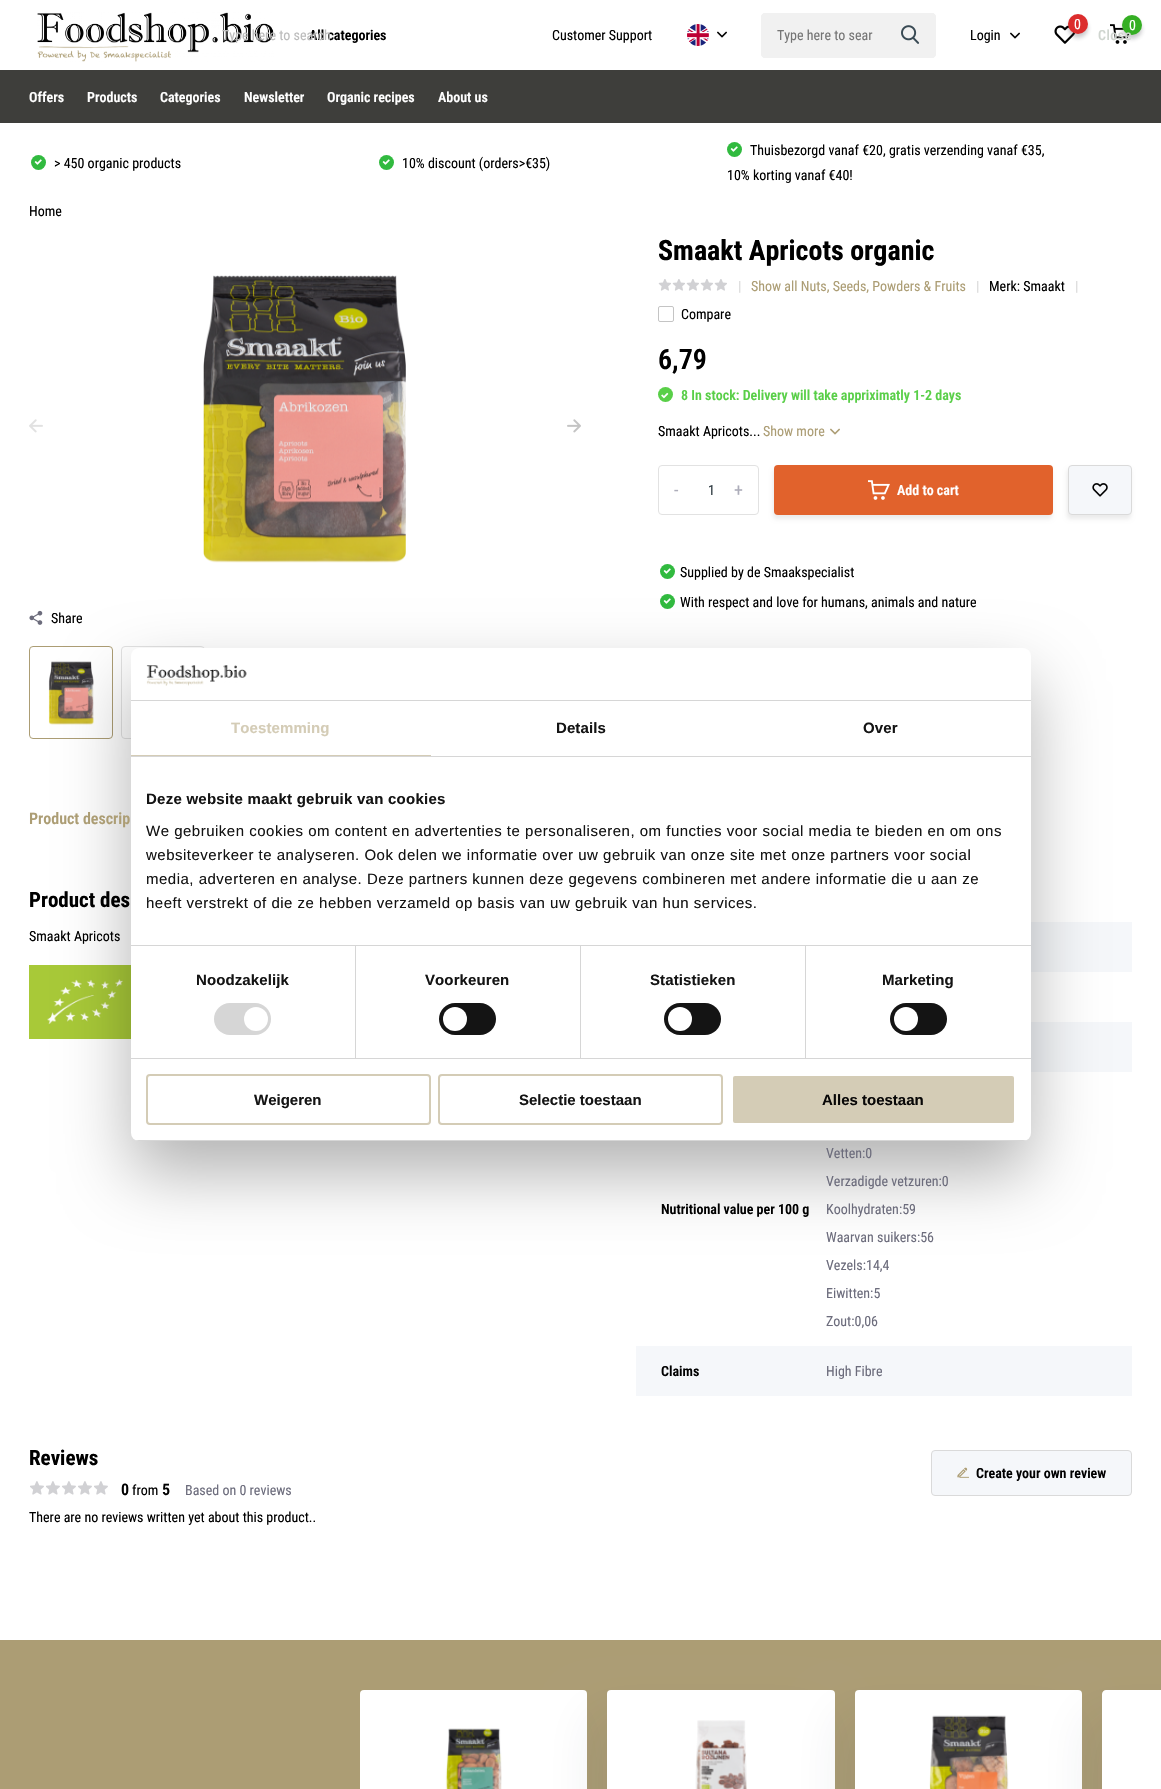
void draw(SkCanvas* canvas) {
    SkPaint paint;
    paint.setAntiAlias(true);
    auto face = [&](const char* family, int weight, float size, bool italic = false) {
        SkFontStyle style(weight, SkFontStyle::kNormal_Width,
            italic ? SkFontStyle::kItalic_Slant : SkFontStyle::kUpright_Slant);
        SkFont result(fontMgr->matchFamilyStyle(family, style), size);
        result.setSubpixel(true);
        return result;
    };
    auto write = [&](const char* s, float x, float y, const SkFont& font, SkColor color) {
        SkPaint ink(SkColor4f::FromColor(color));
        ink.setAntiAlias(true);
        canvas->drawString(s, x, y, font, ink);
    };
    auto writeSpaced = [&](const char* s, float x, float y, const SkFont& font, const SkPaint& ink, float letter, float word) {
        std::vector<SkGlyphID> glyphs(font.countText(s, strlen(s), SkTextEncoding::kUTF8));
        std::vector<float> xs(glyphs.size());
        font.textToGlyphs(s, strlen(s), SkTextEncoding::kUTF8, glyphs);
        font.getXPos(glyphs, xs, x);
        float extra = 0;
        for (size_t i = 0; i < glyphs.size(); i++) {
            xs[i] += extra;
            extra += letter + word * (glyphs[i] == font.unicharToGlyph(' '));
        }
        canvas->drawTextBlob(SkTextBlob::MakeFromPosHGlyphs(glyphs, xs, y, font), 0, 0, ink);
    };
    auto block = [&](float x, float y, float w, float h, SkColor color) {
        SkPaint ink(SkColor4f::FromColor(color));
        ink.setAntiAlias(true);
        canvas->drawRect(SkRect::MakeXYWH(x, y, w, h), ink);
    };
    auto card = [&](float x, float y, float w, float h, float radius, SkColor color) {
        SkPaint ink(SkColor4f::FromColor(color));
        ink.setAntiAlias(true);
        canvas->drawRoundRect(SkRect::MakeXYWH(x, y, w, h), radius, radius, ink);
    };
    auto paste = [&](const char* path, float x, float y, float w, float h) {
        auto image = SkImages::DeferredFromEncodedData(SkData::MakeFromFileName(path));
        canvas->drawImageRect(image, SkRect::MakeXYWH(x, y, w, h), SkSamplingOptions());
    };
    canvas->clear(SK_ColorWHITE);
    paste("pic1.png", 37, 12, 237, 50);
    auto kFont1 = face("Roboto Condensed", 600, 14);
    write("All categories", 309, 40, kFont1, SK_ColorBLACK);
    auto kFont2 = face("Roboto Condensed", 400, 14);
    write("Customer Support", 552, 40, kFont2, SK_ColorBLACK);
    paste("pic2.png", 687, 24, 22, 22);
    paste("pic3.png", 717, 31, 10, 7);
    paint.setColor(SkColorSetRGB(241, 241, 241));
    canvas->drawPath(SkPathBuilder().moveTo(765, 13).lineTo(886, 13).lineTo(886, 58).lineTo(765, 58).cubicTo(763, 58, 761, 56, 761, 54).lineTo(761, 17).cubicTo(761, 15, 763, 13, 765, 13).close().detach(), paint);
    canvas->drawPath(SkPathBuilder(SkPathFillType::kEvenOdd).moveTo(765, 13).lineTo(886, 13).lineTo(886, 58).lineTo(765, 58).cubicTo(763, 58, 761, 56, 761, 54).lineTo(761, 17).cubicTo(761, 15, 763, 13, 765, 13).close().moveTo(765, 14).lineTo(886, 14).lineTo(886, 57).lineTo(765, 57).cubicTo(763, 57, 762, 56, 762, 54).lineTo(762, 17).cubicTo(762, 15, 763, 14, 765, 14).close().detach(), paint);
    write("Type here to sear", 777, 40, kFont2, SkColorSetRGB(117, 117, 117));
    canvas->drawPath(SkPathBuilder().moveTo(886, 13).lineTo(932, 13).cubicTo(934, 13, 936, 15, 936, 17).lineTo(936, 54).cubicTo(936, 56, 934, 58, 932, 58).lineTo(886, 58).close().detach(), paint);
    canvas->drawPath(SkPathBuilder(SkPathFillType::kEvenOdd).moveTo(886, 13).lineTo(932, 13).cubicTo(934, 13, 936, 15, 936, 17).lineTo(936, 54).cubicTo(936, 56, 934, 58, 932, 58).lineTo(886, 58).close().moveTo(886, 14).lineTo(932, 14).cubicTo(934, 14, 935, 15, 935, 17).lineTo(935, 54).cubicTo(935, 56, 934, 57, 932, 57).lineTo(886, 57).close().detach(), paint);
    paste("pic4.png", 901, 25, 19, 19);
    write("Login", 970, 40, kFont2, SK_ColorBLACK);
    paste("pic3.png", 1010, 32, 10, 7);
    paste("pic5.png", 1054, 25, 21, 19);
    paint.setColor(SkColorSetARGB(64, 40, 40, 48));
    paint.setMaskFilter(SkMaskFilter::MakeBlur(kNormal_SkBlurStyle, 2));
    canvas->drawRoundRect(SkRect::MakeXYWH(1068, 18, 20, 20), 10, 10, paint);
    paint.setMaskFilter(nullptr);
    paint.setColor(SkColorSetRGB(220, 45, 45));
    canvas->drawCircle(1078, 24, 10, paint);
    write("0", 1074, 29, kFont2, SK_ColorWHITE);
    paste("pic6.png", 1110, 24, 20, 20);
    paint.setColor(SkColorSetARGB(64, 40, 40, 48));
    paint.setMaskFilter(SkMaskFilter::MakeBlur(kNormal_SkBlurStyle, 2));
    canvas->drawRoundRect(SkRect::MakeXYWH(1122, 19, 20, 20), 10, 10, paint);
    paint.setMaskFilter(nullptr);
    paint.setColor(SkColorSetRGB(53, 175, 36));
    canvas->drawCircle(1132, 25, 10, paint);
    write("0", 1129, 30, kFont2, SK_ColorWHITE);
    write("Type here to search", 222, 40, kFont2, SkColorSetRGB(188, 188, 188));
    auto kFont3 = face("Roboto Condensed", 500, 14);
    paint.setColor(SkColorSetRGB(207, 213, 207));
    writeSpaced("Close", 1098, 40, kFont3, paint, 0.5f, 0);
    block(0, 70, 1161, 53, SkColorSetRGB(62, 62, 59));
    write("Offers", 29, 102, kFont1, SK_ColorWHITE);
    write("Products", 87, 102, kFont1, SK_ColorWHITE);
    write("Categories", 160, 102, kFont1, SK_ColorWHITE);
    write("Newsletter", 244, 102, kFont1, SK_ColorWHITE);
    write("Organic recipes", 327, 102, kFont1, SK_ColorWHITE);
    write("About us", 438, 102, kFont1, SK_ColorWHITE);
    paint.setColor(SkColorSetRGB(49, 186, 63));
    canvas->drawCircle(38.5f, 162.5f, 7.5f, paint);
    paste("pic7.png", 34, 159, 8, 6);
    write("> 450 organic products", 54, 168, kFont2, SK_ColorBLACK);
    canvas->drawCircle(386.5f, 162.5f, 7.5f, paint);
    paste("pic7.png", 382, 159, 8, 6);
    write("10% discount (orders>€35)", 402, 168, kFont2, SK_ColorBLACK);
    canvas->drawCircle(734.5f, 149.5f, 7.5f, paint);
    paste("pic7.png", 730, 146, 8, 6);
    write("Thuisbezorgd vanaf €20, gratis verzending vanaf €35,", 750, 155, kFont2, SK_ColorBLACK);
    write("10% korting vanaf €40!", 727, 180, kFont2, SK_ColorBLACK);
    write("Home", 29, 216, kFont2, SK_ColorBLACK);
    auto kFont4 = face("Roboto Condensed", 700, 28);
    write("Smaakt Apricots organic", 658, 260, kFont4, SK_ColorBLACK);
    paste("pic8.png", 658, 279, 13, 12);
    paste("pic8.png", 672, 279, 13, 12);
    paste("pic8.png", 686, 279, 13, 12);
    paste("pic8.png", 700, 279, 13, 12);
    paste("pic8.png", 714, 279, 13, 12);
    write("|", 738, 291, kFont2, SkColorSetRGB(218, 218, 218));
    write("Show all Nuts, Seeds, Powders & Fruits", 751, 291, kFont2, SkColorSetRGB(172, 157, 116));
    write("|", 976, 291, kFont2, SkColorSetRGB(218, 218, 218));
    write("Merk: Smaakt", 989, 291, kFont2, SK_ColorBLACK);
    write("|", 1075, 291, kFont2, SkColorSetRGB(218, 218, 218));
    paint.setStyle(SkPaint::kStroke_Style);
    paint.setStrokeWidth(1);
    paint.setColor(SkColorSetRGB(196, 196, 196));
    canvas->drawRoundRect(SkRect::MakeXYWH(658.5f, 306.5f, 15, 15), 1.5f, 1.5f, paint);
    write("Compare", 681, 319, kFont2, SK_ColorBLACK);
    auto kFont5 = face("Roboto Condensed", 600, 28);
    write("6,79", 658, 369, kFont5, SK_ColorBLACK);
    paint.setStyle(SkPaint::kFill_Style);
    paint.setColor(SkColorSetRGB(89, 207, 72));
    canvas->drawCircle(665.5f, 394.5f, 7.5f, paint);
    paste("pic9.png", 661, 392, 8, 7);
    write("8 In stock: Delivery will take appriximatly 1-2 days", 681, 400, kFont1, SkColorSetRGB(89, 207, 72));
    write("Smaakt Apricots...", 658, 436, kFont2, SK_ColorBLACK);
    write("Show more", 763, 436, kFont2, SkColorSetRGB(172, 157, 116));
    paste("pic10.png", 830, 428, 10, 7);
    paint.setStyle(SkPaint::kStroke_Style);
    paint.setColor(SkColorSetRGB(226, 226, 226));
    canvas->drawRoundRect(SkRect::MakeXYWH(658.5f, 465.5f, 100, 49), 3.5f, 3.5f, paint);
    auto kFont6 = face("Roboto Condensed", 400, 18);
    write("-", 674, 496, kFont6, SkColorSetRGB(173, 173, 186));
    write("+", 734, 496, kFont6, SkColorSetRGB(173, 173, 186));
    write("1", 708, 495, kFont2, SkColorSetRGB(48, 60, 67));
    paint.setStyle(SkPaint::kFill_Style);
    paint.setColor(SkColorSetARGB(20, 0, 0, 0));
    paint.setMaskFilter(SkMaskFilter::MakeBlur(kNormal_SkBlurStyle, 2));
    canvas->drawRoundRect(SkRect::MakeXYWH(773, 469, 279, 50), 4, 4, paint);
    paint.setMaskFilter(nullptr);
    card(774, 465, 279, 50, 4, SkColorSetRGB(225, 98, 44));
    paste("pic11.png", 868, 480, 22, 20);
    write("Add to cart", 897, 495, kFont1, SK_ColorWHITE);
    paint.setMaskFilter(SkMaskFilter::MakeBlur(kNormal_SkBlurStyle, 2));
    canvas->drawRoundRect(SkRect::MakeXYWH(1067, 469, 64, 50), 4, 4, paint);
    paint.setMaskFilter(nullptr);
    paint.setColor(SkColorSetRGB(245, 247, 250));
    canvas->drawRoundRect(SkRect::MakeXYWH(1068.5f, 465.5f, 63, 49), 3.5f, 3.5f, paint);
    paint.setStyle(SkPaint::kStroke_Style);
    paint.setColor(SkColorSetRGB(218, 218, 218));
    canvas->drawRoundRect(SkRect::MakeXYWH(1068.5f, 465.5f, 63, 49), 3.5f, 3.5f, paint);
    paste("pic12.png", 1092, 483, 16, 14);
    paint.setStyle(SkPaint::kFill_Style);
    paint.setColor(SkColorSetRGB(49, 186, 63));
    canvas->drawCircle(667.5f, 571.5f, 7.5f, paint);
    paste("pic7.png", 663, 568, 8, 6);
    write("Supplied by de Smaakspecialist", 680, 577, kFont2, SK_ColorBLACK);
    canvas->drawCircle(667.5f, 601.5f, 7.5f, paint);
    paste("pic7.png", 663, 598, 8, 6);
    write("With respect and love for humans, animals and nature", 680, 607, kFont2, SK_ColorBLACK);
    paste("pic13.png", 203, 275, 203, 288);
    paste("pic14.png", 29, 419, 14, 14);
    paste("pic15.png", 567, 419, 14, 14);
    paste("pic16.png", 29, 610, 14, 15);
    write("Share", 51, 623, kFont2, SK_ColorBLACK);
    paint.setStyle(SkPaint::kStroke_Style);
    paint.setColor(SkColorSetRGB(172, 157, 116));
    canvas->drawRoundRect(SkRect::MakeXYWH(29.5f, 646.5f, 83, 92), 3.5f, 3.5f, paint);
    paste("pic17.png", 48, 661, 46, 64);
    paint.setColor(SkColorSetRGB(226, 226, 226));
    canvas->drawRoundRect(SkRect::MakeXYWH(121.5f, 646.5f, 83, 92), 3.5f, 3.5f, paint);
    paste("pic19.png", 29, 965, 102, 74);
    block(1031, 922, 101, 50, SkColorSetRGB(245, 247, 250));
    block(1031, 1022, 101, 50, SkColorSetRGB(245, 247, 250));
    paint.setStyle(SkPaint::kFill_Style);
    paint.setColor(SkColorSetARGB(77, 0, 0, 0));
    paint.setMaskFilter(SkMaskFilter::MakeBlur(kNormal_SkBlurStyle, 34));
    canvas->drawRoundRect(SkRect::MakeXYWH(131, 680, 900, 493), 8, 8, paint);
    paint.setMaskFilter(nullptr);
    card(131, 648, 900, 493, 8, SK_ColorWHITE);
    block(131, 700, 900, 1, SkColorSetRGB(214, 214, 214));
    paste("pic18.png", 146, 665, 101, 21);
    block(131, 756, 900, 1, SkColorSetRGB(214, 214, 214));
    block(131, 755, 300, 1, SkColorSetRGB(212, 204, 182));
    auto kFont7 = face("Liberation Sans", 700, 15);
    paint.setColor(SkColorSetRGB(212, 204, 182));
    writeSpaced("Toestemming", 231, 733, kFont7, paint, 0.1f, 0);
    paint.setColor(SkColorSetRGB(20, 20, 20));
    writeSpaced("Details", 556, 733, kFont7, paint, 0.1f, 0);
    writeSpaced("Over", 863, 733, kFont7, paint, 0.1f, 0);
    block(131, 945, 900, 1, SkColorSetRGB(214, 214, 214));
    writeSpaced("Deze website maakt gebruik van cookies", 146, 804, kFont7, paint, 0.25f, 0);
    auto kFont8 = face("Liberation Sans", 400, 15);
    writeSpaced("We gebruiken cookies om content en advertenties te personaliseren, om functies voor social media te bieden en om ons", 146, 836, kFont8, paint, 0.5f, 0);
    writeSpaced("websiteverkeer te analyseren. Ook delen we informatie over uw gebruik van onze site met onze partners voor social", 146, 860, kFont8, paint, 0.5f, 0);
    writeSpaced("media, adverteren en analyse. Deze partners kunnen deze gegevens combineren met andere informatie die u aan ze", 146, 884, kFont8, paint, 0.5f, 0);
    writeSpaced("heeft verstrekt of die ze hebben verzameld op basis van uw gebruik van hun services.", 146, 908, kFont8, paint, 0.5f, 0);
    block(131, 1058, 900, 1, SkColorSetRGB(214, 214, 214));
    block(355, 946, 1, 112, SkColorSetRGB(214, 214, 214));
    writeSpaced("Noodzakelijk", 196, 985, kFont7, paint, 0.1f, 0);
    card(214, 1003, 57, 32, 16, SkColorSetRGB(214, 214, 214));
    paint.setColor(SK_ColorWHITE);
    canvas->drawCircle(256, 1019, 12, paint);
    block(580, 946, 1, 112, SkColorSetRGB(214, 214, 214));
    paint.setColor(SkColorSetRGB(20, 20, 20));
    writeSpaced("Voorkeuren", 425, 985, kFont7, paint, 0.1f, 0);
    card(439, 1003, 57, 32, 16, SkColorSetRGB(20, 20, 20));
    paint.setColor(SK_ColorWHITE);
    canvas->drawCircle(455, 1019, 12, paint);
    block(805, 946, 1, 112, SkColorSetRGB(214, 214, 214));
    paint.setColor(SkColorSetRGB(20, 20, 20));
    writeSpaced("Statistieken", 650, 985, kFont7, paint, 0.1f, 0);
    card(664, 1003, 57, 32, 16, SkColorSetRGB(20, 20, 20));
    paint.setColor(SK_ColorWHITE);
    canvas->drawCircle(680, 1019, 12, paint);
    paint.setColor(SkColorSetRGB(20, 20, 20));
    writeSpaced("Marketing", 882, 985, kFont7, paint, 0.1f, 0);
    card(890, 1003, 57, 32, 16, SkColorSetRGB(20, 20, 20));
    paint.setColor(SK_ColorWHITE);
    canvas->drawCircle(906, 1019, 12, paint);
    canvas->save();
    canvas->clipPath(SkPathBuilder().moveTo(139, 648).lineTo(1023, 648).cubicTo(1027.5f, 648, 1031, 651.5f, 1031, 656).lineTo(1031, 1133).cubicTo(1031, 1137.5f, 1027.5f, 1141, 1023, 1141).lineTo(139, 1141).cubicTo(134.5f, 1141, 131, 1137.5f, 131, 1133).lineTo(131, 656).cubicTo(131, 651.5f, 134.5f, 648, 139, 648).close().detach(), true);
    block(131, 1140, 900, 1, SkColorSetRGB(214, 214, 214));
    canvas->restore();
    paint.setStyle(SkPaint::kStroke_Style);
    paint.setStrokeWidth(2);
    paint.setColor(SkColorSetRGB(212, 204, 182));
    canvas->drawRoundRect(SkRect::MakeXYWH(147, 1075, 283, 49), 3, 3, paint);
    write("Weigeren", 254, 1105, kFont7, SkColorSetRGB(20, 20, 20));
    canvas->drawRoundRect(SkRect::MakeXYWH(439, 1075, 283, 49), 3, 3, paint);
    write("Selectie toestaan", 519, 1105, kFont7, SkColorSetRGB(20, 20, 20));
    paint.setStyle(SkPaint::kFill_Style);
    canvas->drawRoundRect(SkRect::MakeXYWH(732, 1075, 283, 49), 3, 3, paint);
    paint.setStyle(SkPaint::kStroke_Style);
    paint.setColor(SK_ColorWHITE);
    canvas->drawRoundRect(SkRect::MakeXYWH(732, 1075, 283, 49), 3, 3, paint);
    write("Alles toestaan", 822, 1105, kFont7, SkColorSetRGB(8, 7, 7));
    auto kFont9 = face("Roboto Condensed", 600, 16);
    write("Product descrip", 29, 824, kFont9, SkColorSetRGB(172, 157, 116));
    auto kFont10 = face("Roboto Condensed", 700, 21);
    write("Product des", 29, 907, kFont10, SK_ColorBLACK);
    write("Smaakt Apricots", 29, 941, kFont2, SK_ColorBLACK);
    write("Nutritional value per 100 g", 661, 1214, kFont1, SK_ColorBLACK);
    write("Vetten:0", 826, 1158, kFont2, SkColorSetRGB(108, 108, 124));
    write("Verzadigde vetzuren:0", 826, 1186, kFont2, SkColorSetRGB(108, 108, 124));
    write("Koolhydraten:59", 826, 1214, kFont2, SkColorSetRGB(108, 108, 124));
    write("Waarvan suikers:56", 826, 1242, kFont2, SkColorSetRGB(108, 108, 124));
    write("Vezels:14,4", 826, 1270, kFont2, SkColorSetRGB(108, 108, 124));
    write("Eiwitten:5", 826, 1298, kFont2, SkColorSetRGB(108, 108, 124));
    write("Zout:0,06", 826, 1326, kFont2, SkColorSetRGB(108, 108, 124));
    block(636, 1346, 496, 50, SkColorSetRGB(245, 247, 250));
    write("Claims", 661, 1376, kFont1, SK_ColorBLACK);
    write("High Fibre", 826, 1376, kFont2, SkColorSetRGB(108, 108, 124));
    write("Reviews", 29, 1465, kFont10, SK_ColorBLACK);
    paint.setStyle(SkPaint::kFill_Style);
    paint.setColor(SkColorSetRGB(245, 247, 250));
    canvas->drawRoundRect(SkRect::MakeXYWH(931.5f, 1450.5f, 200, 45), 3.5f, 3.5f, paint);
    paint.setStyle(SkPaint::kStroke_Style);
    paint.setStrokeWidth(1);
    paint.setColor(SkColorSetRGB(218, 218, 218));
    canvas->drawRoundRect(SkRect::MakeXYWH(931.5f, 1450.5f, 200, 45), 3.5f, 3.5f, paint);
    paste("pic20.png", 957, 1467, 12, 11);
    write("Create your own review", 976, 1478, kFont1, SK_ColorBLACK);
    paste("pic21.png", 30, 1481, 14, 14);
    paste("pic21.png", 46, 1481, 14, 14);
    paste("pic21.png", 62, 1481, 14, 14);
    paste("pic21.png", 78, 1481, 14, 14);
    paste("pic21.png", 94, 1481, 14, 14);
    write("0", 121, 1495, kFont9, SK_ColorBLACK);
    write("from", 132, 1495, kFont2, SK_ColorBLACK);
    write("5", 162, 1495, kFont9, SK_ColorBLACK);
    write("Based on 0 reviews", 185, 1495, kFont2, SkColorSetRGB(108, 108, 124));
    write("There are no reviews written yet about this product..", 29, 1522, kFont2, SK_ColorBLACK);
    block(0, 1640, 1161, 149, SkColorSetRGB(172, 157, 116));
    canvas->save();
    canvas->clipRect(SkRect::MakeXYWH(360, 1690, 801, 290));
    paint.setStyle(SkPaint::kFill_Style);
    paint.setColor(SkColorSetARGB(20, 40, 56, 74));
    paint.setMaskFilter(SkMaskFilter::MakeBlur(kNormal_SkBlurStyle, 25));
    canvas->drawRoundRect(SkRect::MakeXYWH(345, 1715, 227, 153), 4, 4, paint);
    paint.setMaskFilter(nullptr);
    canvas->restore();
    card(360, 1690, 227, 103, 4, SK_ColorWHITE);
    paste("pic22.png", 445, 1728, 57, 61);
    paint.setMaskFilter(SkMaskFilter::MakeBlur(kNormal_SkBlurStyle, 25));
    canvas->drawRoundRect(SkRect::MakeXYWH(592, 1715, 228, 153), 4, 4, paint);
    paint.setMaskFilter(nullptr);
    card(607, 1690, 228, 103, 4, SK_ColorWHITE);
    paste("pic23.png", 695, 1720, 52, 69);
    paint.setMaskFilter(SkMaskFilter::MakeBlur(kNormal_SkBlurStyle, 25));
    canvas->drawRoundRect(SkRect::MakeXYWH(840, 1715, 227, 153), 4, 4, paint);
    paint.setMaskFilter(nullptr);
    card(855, 1690, 227, 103, 4, SK_ColorWHITE);
    paste("pic24.png", 929, 1715, 80, 74);
    paint.setMaskFilter(SkMaskFilter::MakeBlur(kNormal_SkBlurStyle, 25));
    canvas->drawRoundRect(SkRect::MakeXYWH(1087, 1715, 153, 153), 4, 4, paint);
    paint.setMaskFilter(nullptr);
    paint.setColor(SK_ColorWHITE);
    canvas->drawPath(SkPathBuilder().moveTo(1106, 1690).lineTo(1161, 1690).lineTo(1161, 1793).lineTo(1106, 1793).cubicTo(1104, 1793, 1102, 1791, 1102, 1789).lineTo(1102, 1694).cubicTo(1102, 1692, 1104, 1690, 1106, 1690).close().detach(), paint);
}
